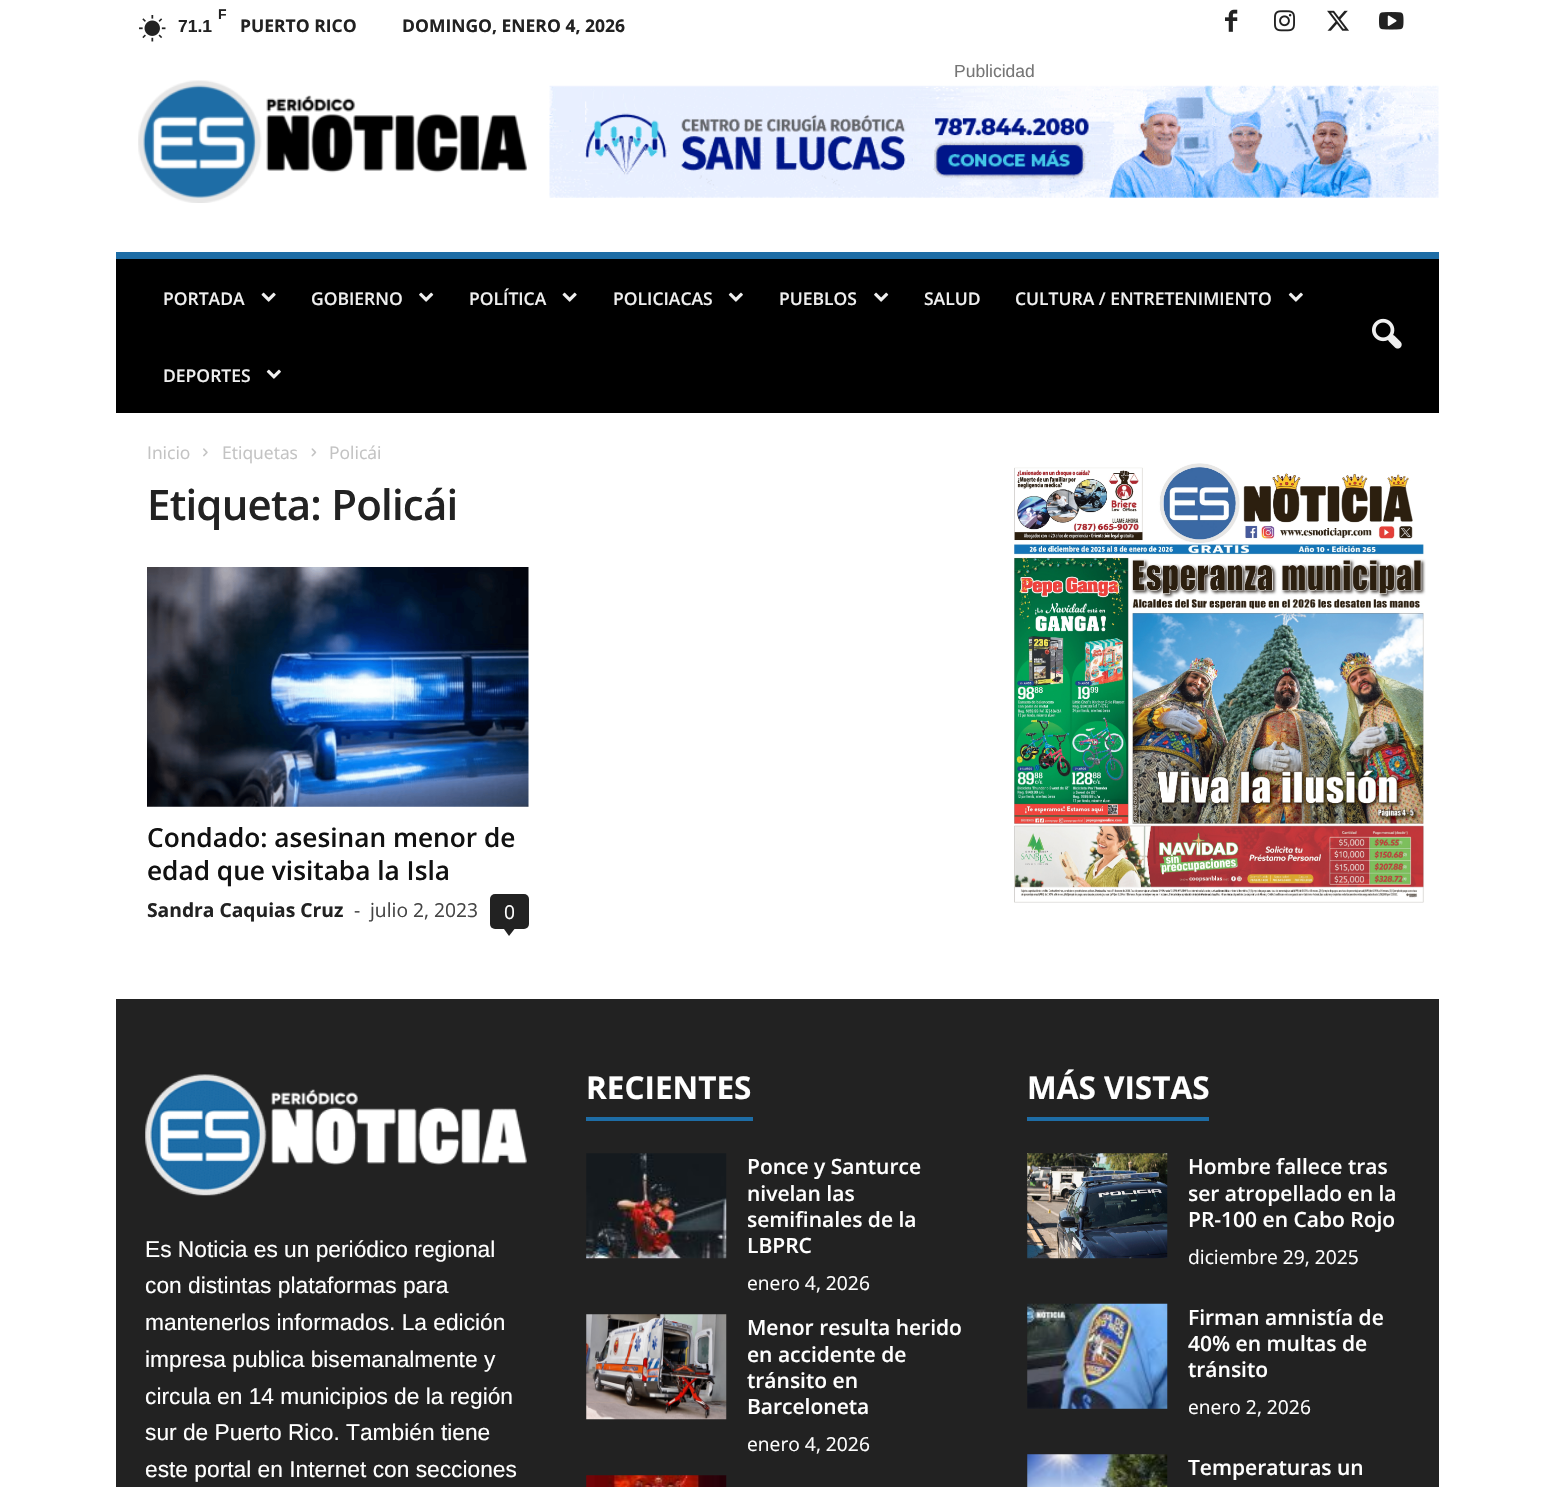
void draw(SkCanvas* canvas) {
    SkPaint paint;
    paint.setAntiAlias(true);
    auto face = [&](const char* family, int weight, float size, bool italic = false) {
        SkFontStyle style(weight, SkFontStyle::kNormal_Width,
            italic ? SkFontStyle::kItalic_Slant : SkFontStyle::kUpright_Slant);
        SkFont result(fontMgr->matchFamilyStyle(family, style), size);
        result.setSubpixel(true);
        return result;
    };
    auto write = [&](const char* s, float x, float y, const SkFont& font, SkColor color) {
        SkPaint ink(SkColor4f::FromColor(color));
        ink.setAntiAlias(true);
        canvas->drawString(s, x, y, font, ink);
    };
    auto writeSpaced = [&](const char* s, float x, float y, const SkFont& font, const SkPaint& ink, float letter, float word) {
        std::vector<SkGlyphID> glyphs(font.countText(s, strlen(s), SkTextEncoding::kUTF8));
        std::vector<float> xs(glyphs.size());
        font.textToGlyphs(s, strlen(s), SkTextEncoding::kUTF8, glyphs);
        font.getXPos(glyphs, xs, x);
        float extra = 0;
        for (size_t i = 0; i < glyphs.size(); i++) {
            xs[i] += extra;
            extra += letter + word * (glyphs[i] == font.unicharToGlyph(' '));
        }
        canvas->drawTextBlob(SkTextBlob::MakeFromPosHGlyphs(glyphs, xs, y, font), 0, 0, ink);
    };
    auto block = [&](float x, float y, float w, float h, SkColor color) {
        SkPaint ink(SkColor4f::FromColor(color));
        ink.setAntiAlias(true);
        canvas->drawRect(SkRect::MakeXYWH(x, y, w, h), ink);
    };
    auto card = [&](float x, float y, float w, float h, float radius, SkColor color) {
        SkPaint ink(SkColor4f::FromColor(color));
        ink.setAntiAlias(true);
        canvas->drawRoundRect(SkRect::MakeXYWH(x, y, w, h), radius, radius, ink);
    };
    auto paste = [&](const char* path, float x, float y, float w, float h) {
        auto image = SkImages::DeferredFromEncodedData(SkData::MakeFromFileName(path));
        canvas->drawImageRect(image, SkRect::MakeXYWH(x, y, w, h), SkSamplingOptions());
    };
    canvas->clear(SK_ColorWHITE);
    paste("pic1.png", 139, 15, 27, 27);
    auto kFont1 = face("Liberation Sans", 700, 14);
    write("F", 218, 19, kFont1, SkColorSetRGB(34, 34, 34));
    auto kFont2 = face("Liberation Sans", 700, 17.5f);
    write("71.1", 178, 32, kFont2, SkColorSetRGB(34, 34, 34));
    auto kFont3 = face("Open Sans", 700, 17.5f);
    write("PUERTO RICO", 240, 32, kFont3, SkColorSetRGB(34, 34, 34));
    write("DOMINGO, ENERO 4, 2026", 402, 32, kFont3, SkColorSetRGB(34, 34, 34));
    paste("pic2.png", 1225, 9, 13, 23);
    paste("pic3.png", 1274, 10, 21, 22);
    paste("pic4.png", 1327, 10, 22, 21);
    paste("pic5.png", 1379, 12, 25, 18);
    auto kFont4 = face("Liberation Sans", 400, 17.5f);
    write("Publicidad", 954, 77, kFont4, SkColorSetRGB(118, 118, 118));
    paste("pic6.png", 549, 85, 890, 113);
    paste("pic7.png", 138, 80, 389, 123);
    block(116, 259, 1323, 154, SK_ColorBLACK);
    block(116, 252, 1323, 7, SkColorSetRGB(30, 109, 166));
    auto kFont5 = face("Open Sans", 600, 17.5f);
    write("PORTADA", 163, 305, kFont5, SkColorSetRGB(239, 239, 239));
    paste("pic8.png", 261, 292, 15, 10);
    write("GOBIERNO", 311, 305, kFont5, SkColorSetRGB(239, 239, 239));
    paste("pic9.png", 419, 292, 15, 10);
    write("POLÍTICA", 469, 305, kFont5, SkColorSetRGB(239, 239, 239));
    paste("pic8.png", 562, 292, 15, 10);
    write("POLICIACAS", 613, 305, kFont5, SkColorSetRGB(239, 239, 239));
    paste("pic10.png", 728, 292, 15, 10);
    write("PUEBLOS", 779, 305, kFont5, SkColorSetRGB(239, 239, 239));
    paste("pic9.png", 874, 292, 15, 10);
    write("SALUD", 924, 305, kFont5, SkColorSetRGB(239, 239, 239));
    write("CULTURA / ENTRETENIMIENTO", 1015, 305, kFont5, SkColorSetRGB(239, 239, 239));
    paste("pic10.png", 1288, 292, 15, 10);
    write("DEPORTES", 163, 382, kFont5, SkColorSetRGB(239, 239, 239));
    paste("pic10.png", 266, 369, 15, 10);
    paste("pic11.png", 1372, 318, 30, 31);
    auto kFont6 = face("Open Sans", 400, 17.5f);
    write("Inicio", 147, 459, kFont6, SkColorSetRGB(195, 195, 195));
    paste("pic12.png", 203, 448, 5, 9);
    write("Etiquetas", 222, 459, kFont6, SkColorSetRGB(195, 195, 195));
    paste("pic13.png", 311, 448, 6, 9);
    write("Policái", 329, 459, kFont6, SkColorSetRGB(195, 195, 195));
    auto kFont7 = face("Open Sans", 600, 42);
    paint.setColor(SkColorSetRGB(34, 34, 34));
    writeSpaced("Etiqueta: Policái", 147, 520, kFont7, paint, -0.8f, 0);
    paste("pic14.png", 147, 567, 382, 240);
    auto kFont8 = face("Open Sans", 600, 26.25f);
    write("Condado: asesinan menor de", 147, 847, kFont8, SkColorSetRGB(17, 17, 17));
    write("edad que visitaba la Isla", 147, 880, kFont8, SkColorSetRGB(17, 17, 17));
    auto kFont9 = face("Open Sans", 700, 19.25f);
    write("Sandra Caquias Cruz", 147, 917, kFont9, SkColorSetRGB(34, 34, 34));
    auto kFont10 = face("Open Sans", 400, 19.25f);
    write("-", 354, 917, kFont10, SkColorSetRGB(68, 68, 68));
    write("julio 2, 2023", 370, 917, kFont10, SkColorSetRGB(68, 68, 68));
    card(490, 894, 39, 35, 5, SkColorSetRGB(34, 34, 34));
    write("0", 504, 919, kFont10, SK_ColorWHITE);
    canvas->drawPath(SkPathBuilder().moveTo(504, 929).lineTo(514.5f, 929).lineTo(509, 936).close().detach(), paint);
    paste("pic15.png", 1014, 463, 412, 440);
    block(116, 999, 1323, 488, SkColorSetRGB(34, 34, 34));
    paste("pic16.png", 145, 1074, 382, 122);
    auto kFont11 = face("Liberation Sans", 400, 22.75f);
    write("Es Noticia es un periódico regional", 145, 1257, kFont11, SK_ColorWHITE);
    write("con distintas plataformas para", 145, 1293, kFont11, SK_ColorWHITE);
    write("mantenerlos informados. La edición", 145, 1330, kFont11, SK_ColorWHITE);
    write("impresa publica bisemanalmente y", 145, 1367, kFont11, SK_ColorWHITE);
    write("circula en 14 municipios de la región", 145, 1404, kFont11, SK_ColorWHITE);
    write("sur de Puerto Rico. También tiene", 145, 1440, kFont11, SK_ColorWHITE);
    write("este portal en Internet con secciones", 145, 1477, kFont11, SK_ColorWHITE);
    auto kFont12 = face("Open Sans", 700, 31.5f);
    write("RECIENTES", 586, 1099, kFont12, SK_ColorWHITE);
    block(586, 1117, 167, 4, SkColorSetRGB(30, 109, 166));
    paste("pic17.png", 586, 1153, 141, 106);
    auto kFont13 = face("Open Sans", 600, 21);
    write("Ponce y Santurce", 747, 1174, kFont13, SK_ColorWHITE);
    write("nivelan las", 747, 1201, kFont13, SK_ColorWHITE);
    write("semifinales de la", 747, 1227, kFont13, SK_ColorWHITE);
    write("LBPRC", 747, 1253, kFont13, SK_ColorWHITE);
    write("enero 4, 2026", 747, 1290, kFont10, SK_ColorWHITE);
    paste("pic18.png", 586, 1314, 141, 106);
    write("Menor resulta herido", 747, 1335, kFont13, SK_ColorWHITE);
    write("en accidente de", 747, 1362, kFont13, SK_ColorWHITE);
    write("tránsito en", 747, 1388, kFont13, SK_ColorWHITE);
    write("Barceloneta", 747, 1414, kFont13, SK_ColorWHITE);
    write("enero 4, 2026", 747, 1451, kFont10, SK_ColorWHITE);
    paste("pic19.png", 586, 1475, 141, 12);
    write("MÁS VISTAS", 1027, 1099, kFont12, SK_ColorWHITE);
    block(1027, 1117, 182, 4, SkColorSetRGB(30, 109, 166));
    paste("pic20.png", 1027, 1153, 141, 106);
    write("Hombre fallece tras", 1188, 1174, kFont13, SK_ColorWHITE);
    write("ser atropellado en la", 1188, 1201, kFont13, SK_ColorWHITE);
    write("PR-100 en Cabo Rojo", 1188, 1227, kFont13, SK_ColorWHITE);
    write("diciembre 29, 2025", 1188, 1264, kFont10, SK_ColorWHITE);
    paste("pic21.png", 1027, 1303, 141, 106);
    write("Firman amnistía de", 1188, 1325, kFont13, SK_ColorWHITE);
    write("40% en multas de", 1188, 1351, kFont13, SK_ColorWHITE);
    write("tránsito", 1188, 1377, kFont13, SK_ColorWHITE);
    write("enero 2, 2026", 1188, 1414, kFont10, SK_ColorWHITE);
    paste("pic22.png", 1027, 1454, 141, 33);
    write("Temperaturas un", 1188, 1475, kFont13, SK_ColorWHITE);
}
